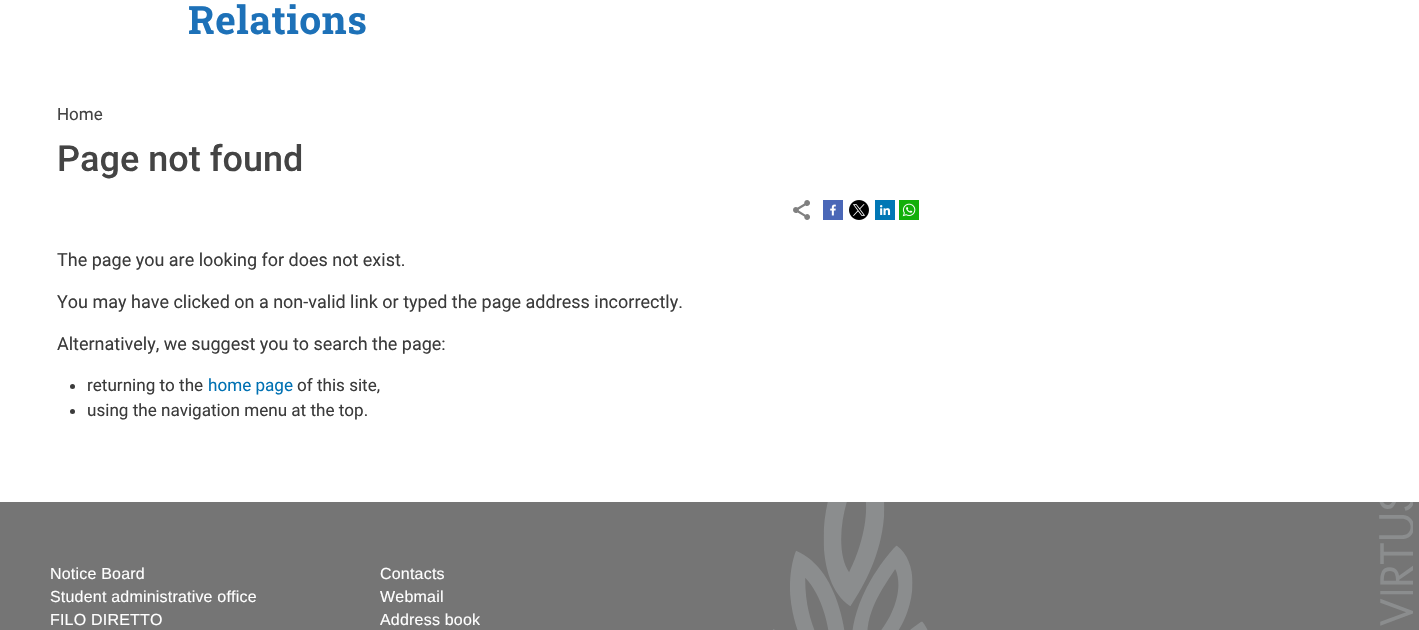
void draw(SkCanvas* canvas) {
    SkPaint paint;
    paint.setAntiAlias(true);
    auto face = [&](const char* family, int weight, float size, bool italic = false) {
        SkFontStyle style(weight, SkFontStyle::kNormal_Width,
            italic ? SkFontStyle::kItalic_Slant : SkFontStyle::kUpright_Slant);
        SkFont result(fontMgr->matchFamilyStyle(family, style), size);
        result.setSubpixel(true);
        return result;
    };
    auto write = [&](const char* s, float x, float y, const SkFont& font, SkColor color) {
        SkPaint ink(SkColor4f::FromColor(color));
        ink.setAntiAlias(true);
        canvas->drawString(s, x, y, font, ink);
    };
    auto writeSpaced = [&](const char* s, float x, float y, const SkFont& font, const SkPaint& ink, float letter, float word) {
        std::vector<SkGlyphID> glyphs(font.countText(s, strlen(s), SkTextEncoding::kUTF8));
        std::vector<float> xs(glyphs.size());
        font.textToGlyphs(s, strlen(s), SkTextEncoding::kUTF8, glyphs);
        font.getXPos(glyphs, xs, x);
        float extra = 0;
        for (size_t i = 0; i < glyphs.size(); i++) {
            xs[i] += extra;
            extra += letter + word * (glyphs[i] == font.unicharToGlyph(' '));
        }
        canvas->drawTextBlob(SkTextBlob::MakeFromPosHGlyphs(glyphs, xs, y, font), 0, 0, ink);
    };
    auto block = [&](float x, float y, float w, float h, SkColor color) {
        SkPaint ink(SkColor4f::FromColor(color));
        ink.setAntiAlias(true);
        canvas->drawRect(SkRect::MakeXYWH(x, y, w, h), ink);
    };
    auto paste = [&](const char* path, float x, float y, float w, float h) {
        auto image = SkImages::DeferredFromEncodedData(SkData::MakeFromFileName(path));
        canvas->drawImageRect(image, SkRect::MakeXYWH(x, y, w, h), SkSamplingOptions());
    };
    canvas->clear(SK_ColorWHITE);
    auto kFont1 = face("Roboto Slab", 700, 39);
    paint.setColor(SkColorSetRGB(29, 113, 184));
    writeSpaced("Relations", 188, 34, kFont1, paint, 0.5f, 0);
    auto kFont2 = face("Roboto", 400, 17);
    write("Home", 57, 120, kFont2, SkColorSetRGB(68, 68, 68));
    auto kFont3 = face("Roboto", 500, 36);
    write("Page not found", 57, 171, kFont3, SkColorSetRGB(68, 68, 68));
    paste("pic1.png", 793, 200, 17, 20);
    paste("pic2.png", 823, 200, 20, 20);
    paste("pic3.png", 849, 200, 20, 20);
    paste("pic4.png", 875, 200, 20, 20);
    paste("pic5.png", 899, 200, 20, 20);
    auto kFont4 = face("Roboto", 400, 18);
    write("The page you are looking for does not exist.", 57, 266, kFont4, SkColorSetRGB(59, 59, 59));
    write("You may have clicked on a non-valid link or typed the page address incorrectly.", 57, 308, kFont4, SkColorSetRGB(59, 59, 59));
    write("Alternatively, we suggest you to search the page:", 57, 350, kFont4, SkColorSetRGB(59, 59, 59));
    paint.setColor(SkColorSetRGB(59, 59, 59));
    canvas->drawCircle(72.5f, 386.5f, 2.5f, paint);
    auto kFont5 = face("Roboto", 400, 17.1f);
    write("returning to the", 87, 391, kFont5, SkColorSetRGB(59, 59, 59));
    write("home page", 208, 391, kFont5, SkColorSetRGB(0, 113, 179));
    write("of this site,", 297, 391, kFont5, SkColorSetRGB(59, 59, 59));
    canvas->drawCircle(72.5f, 411.5f, 2.5f, paint);
    write("using the navigation menu at the top.", 87, 416, kFont5, SkColorSetRGB(59, 59, 59));
    block(0, 502, 1419, 128, SkColorSetRGB(117, 117, 117));
    auto kFont6 = face("Liberation Sans", 400, 16);
    paint.setColor(SK_ColorWHITE);
    writeSpaced("Notice Board", 50, 579, kFont6, paint, 0.2f, 0);
    writeSpaced("Student administrative office", 50, 602, kFont6, paint, 0.2f, 0);
    writeSpaced("FILO DIRETTO", 50, 625, kFont6, paint, 0.2f, 0);
    writeSpaced("Contacts", 380, 579, kFont6, paint, 0.2f, 0);
    writeSpaced("Webmail", 380, 602, kFont6, paint, 0.2f, 0);
    writeSpaced("Address book", 380, 625, kFont6, paint, 0.2f, 0);
    paste("pic6.png", 773, 502, 155, 128);
    paste("pic7.png", 1379, 502, 34, 124);
}
